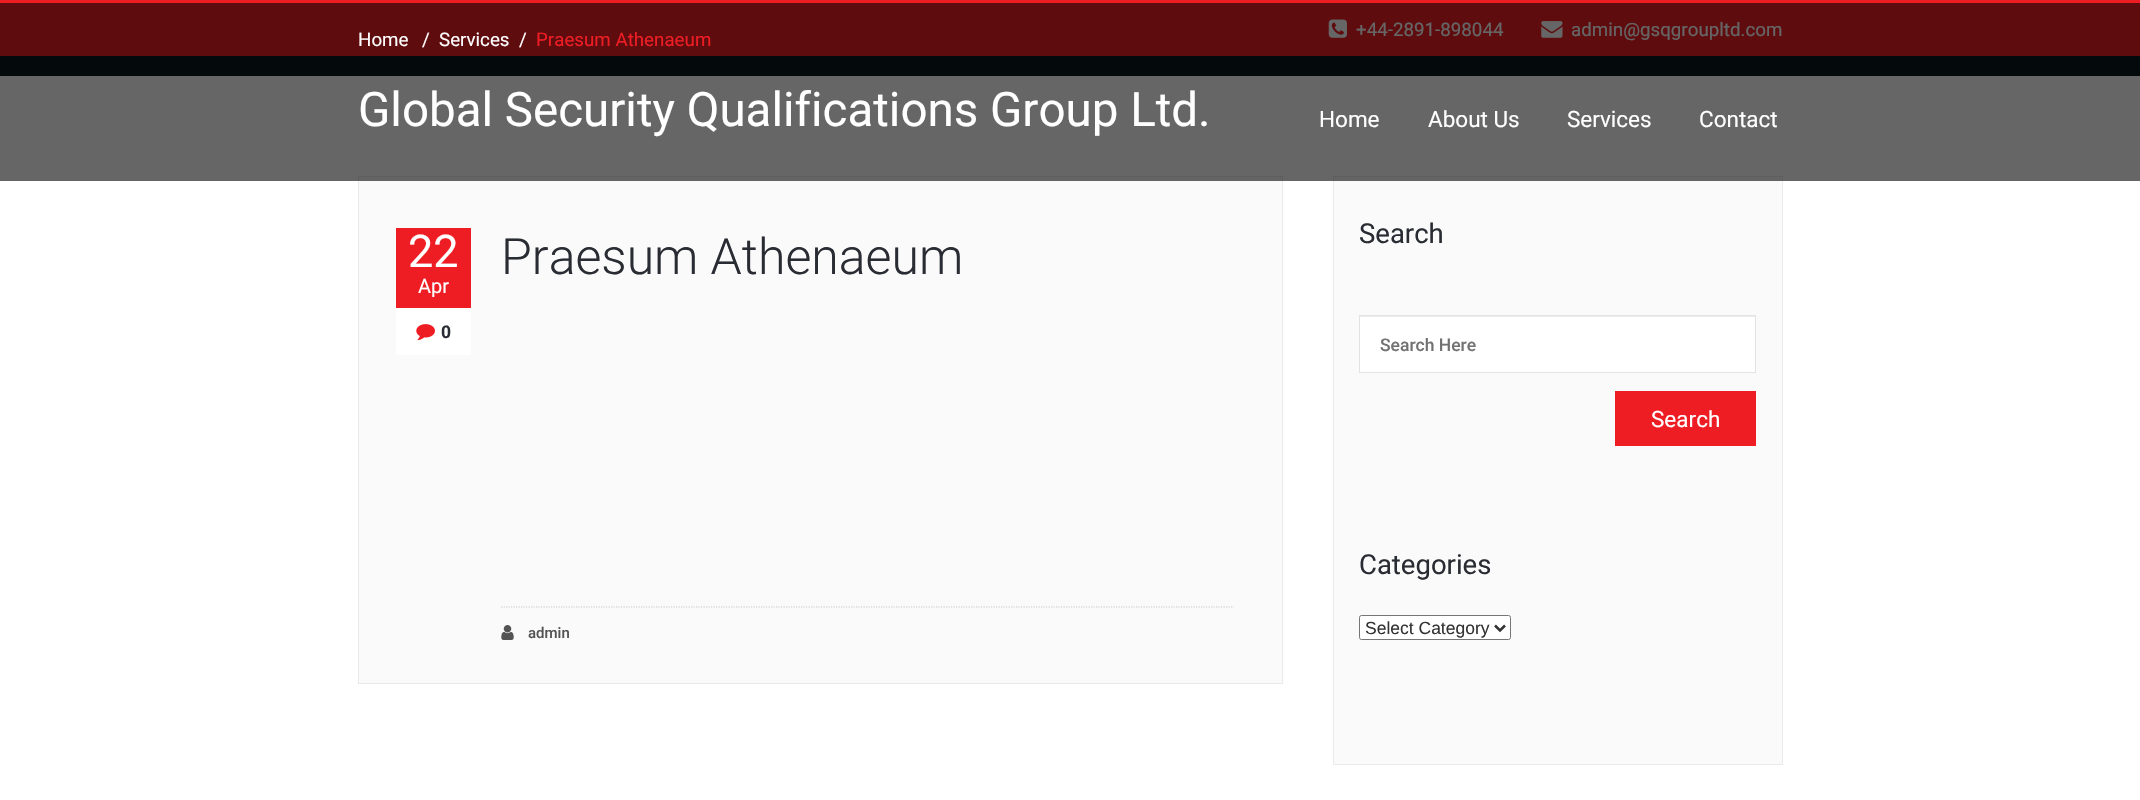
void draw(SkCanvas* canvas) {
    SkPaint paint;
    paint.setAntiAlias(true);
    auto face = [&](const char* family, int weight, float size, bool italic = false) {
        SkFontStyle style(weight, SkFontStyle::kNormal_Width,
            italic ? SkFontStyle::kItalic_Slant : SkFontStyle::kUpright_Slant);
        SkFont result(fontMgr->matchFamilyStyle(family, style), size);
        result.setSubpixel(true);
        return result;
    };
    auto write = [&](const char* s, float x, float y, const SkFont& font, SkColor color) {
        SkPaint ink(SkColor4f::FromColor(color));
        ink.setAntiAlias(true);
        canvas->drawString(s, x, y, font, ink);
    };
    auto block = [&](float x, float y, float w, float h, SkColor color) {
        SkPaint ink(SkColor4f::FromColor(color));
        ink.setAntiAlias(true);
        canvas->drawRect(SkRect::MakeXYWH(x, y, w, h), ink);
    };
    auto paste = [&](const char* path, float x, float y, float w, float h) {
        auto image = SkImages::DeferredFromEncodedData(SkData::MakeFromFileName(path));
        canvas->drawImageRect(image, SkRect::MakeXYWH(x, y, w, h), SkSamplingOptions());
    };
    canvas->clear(SK_ColorWHITE);
    block(0, 56, 2140, 20, SkColorSetRGB(20, 55, 69));
    block(0, 0, 2140, 56, SkColorSetRGB(238, 29, 36));
    paste("pic1.png", 1328, 19, 19, 19);
    auto kFont1 = face("Roboto", 400, 18.75f);
    write("+44-2891-898044", 1356, 36, kFont1, SK_ColorWHITE);
    paste("pic2.png", 1541, 21, 22, 17);
    write("admin@gsqgroupltd.com", 1571, 36, kFont1, SK_ColorWHITE);
    block(0, 3, 2140, 73, SkColorSetARGB(153, 0, 0, 0));
    write("Home", 358, 46, kFont1, SK_ColorWHITE);
    write("/", 422, 46, kFont1, SK_ColorWHITE);
    write("Services", 439, 46, kFont1, SK_ColorWHITE);
    write("/", 519, 46, kFont1, SK_ColorWHITE);
    write("Praesum Athenaeum", 536, 46, kFont1, SkColorSetRGB(238, 29, 36));
    paint.setColor(SkColorSetRGB(250, 250, 250));
    canvas->drawRect(SkRect::MakeXYWH(358.5f, 176.5f, 924, 507), paint);
    paint.setStyle(SkPaint::kStroke_Style);
    paint.setStrokeWidth(1);
    paint.setColor(SkColorSetRGB(234, 234, 234));
    canvas->drawRect(SkRect::MakeXYWH(358.5f, 176.5f, 924, 507), paint);
    paint.setStyle(SkPaint::kFill_Style);
    paint.setColor(SkColorSetRGB(250, 250, 250));
    canvas->drawRect(SkRect::MakeXYWH(1333.5f, 176.5f, 449, 588), paint);
    paint.setStyle(SkPaint::kStroke_Style);
    paint.setColor(SkColorSetRGB(234, 234, 234));
    canvas->drawRect(SkRect::MakeXYWH(1333.5f, 176.5f, 449, 588), paint);
    block(0, 56, 2140, 125, SkColorSetARGB(153, 0, 0, 0));
    auto kFont2 = face("Roboto", 400, 47.5f);
    write("Global Security Qualifications Group Ltd.", 358, 126, kFont2, SK_ColorWHITE);
    auto kFont3 = face("Roboto", 400, 22.5f);
    write("Home", 1319, 127, kFont3, SK_ColorWHITE);
    write("About Us", 1428, 127, kFont3, SK_ColorWHITE);
    write("Services", 1567, 127, kFont3, SK_ColorWHITE);
    write("Contact", 1699, 127, kFont3, SK_ColorWHITE);
    block(396, 308, 75, 47, SK_ColorWHITE);
    block(396, 228, 75, 80, SkColorSetRGB(238, 29, 36));
    auto kFont4 = face("Roboto", 400, 45);
    write("22", 408, 267, kFont4, SK_ColorWHITE);
    auto kFont5 = face("Roboto", 400, 20);
    write("Apr", 418, 293, kFont5, SK_ColorWHITE);
    paste("pic3.png", 416, 324, 19, 17);
    auto kFont6 = face("Roboto", 700, 17.5f);
    write("0", 441, 338, kFont6, SkColorSetRGB(42, 44, 51));
    auto kFont7 = face("Roboto", 300, 50);
    write("Praesum Athenaeum", 501, 274, kFont7, SkColorSetRGB(42, 44, 51));
    paint.setStrokeWidth(1.2f);
    paint.setColor(SkColorSetRGB(202, 202, 202));
    paint.setPathEffect(SkDashPathEffect::Make({{1.25f, 1.25f}}, 0));
    canvas->drawPath(SkPathBuilder().moveTo(501, 607).lineTo(1234, 607).detach(), paint);
    paint.setPathEffect(nullptr);
    paste("pic4.png", 501, 625, 13, 15);
    auto kFont8 = face("Roboto", 500, 15);
    write("admin", 528, 638, kFont8, SkColorSetRGB(84, 84, 84));
    auto kFont9 = face("Roboto", 400, 27.5f);
    write("Search", 1359, 243, kFont9, SkColorSetRGB(42, 44, 51));
    block(1360, 317, 395, 55, SK_ColorWHITE);
    block(1360, 316, 395, 1, SkColorSetRGB(236, 236, 236));
    paint.setStrokeWidth(1);
    paint.setColor(SkColorSetRGB(224, 228, 230));
    canvas->drawRect(SkRect::MakeXYWH(1359.5f, 315.5f, 396, 57), paint);
    auto kFont10 = face("Roboto", 500, 17.5f);
    write("Search Here", 1380, 351, kFont10, SkColorSetRGB(114, 114, 114));
    block(1615, 391, 141, 55, SkColorSetRGB(238, 29, 36));
    write("Search", 1651, 427, kFont3, SK_ColorWHITE);
    write("Categories", 1359, 574, kFont9, SkColorSetRGB(42, 44, 51));
    paint.setStyle(SkPaint::kFill_Style);
    paint.setColor(SK_ColorWHITE);
    canvas->drawRoundRect(SkRect::MakeXYWH(1359.5f, 615.5f, 151, 24), 2, 2, paint);
    paint.setStyle(SkPaint::kStroke_Style);
    paint.setColor(SkColorSetRGB(118, 118, 118));
    canvas->drawRoundRect(SkRect::MakeXYWH(1359.5f, 615.5f, 151, 24), 2, 2, paint);
    paint.setStrokeWidth(2.5f);
    paint.setColor(SkColorSetRGB(51, 51, 51));
    canvas->drawPath(SkPathBuilder().moveTo(1495, 625.5f).lineTo(1500, 630.5f).lineTo(1505, 625.5f).detach(), paint);
    auto kFont11 = face("Liberation Sans", 400, 17.5f);
    write("Select Category", 1365, 634, kFont11, SkColorSetRGB(51, 51, 51));
}
